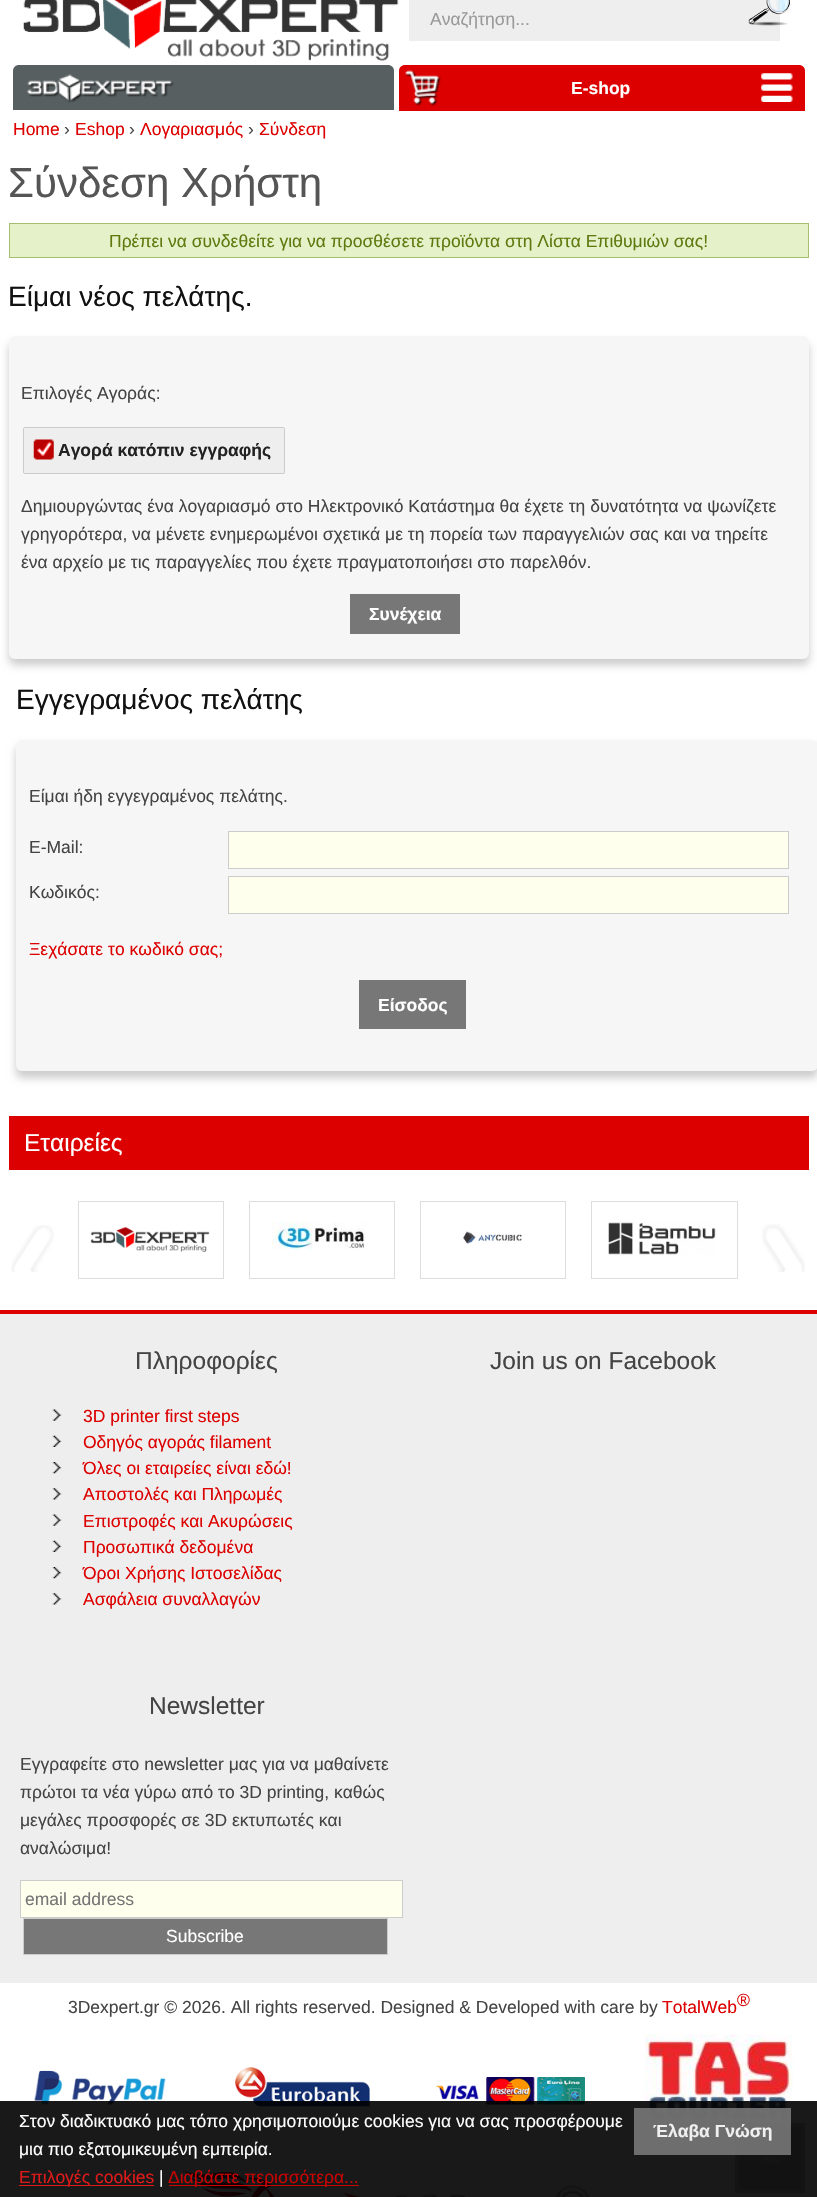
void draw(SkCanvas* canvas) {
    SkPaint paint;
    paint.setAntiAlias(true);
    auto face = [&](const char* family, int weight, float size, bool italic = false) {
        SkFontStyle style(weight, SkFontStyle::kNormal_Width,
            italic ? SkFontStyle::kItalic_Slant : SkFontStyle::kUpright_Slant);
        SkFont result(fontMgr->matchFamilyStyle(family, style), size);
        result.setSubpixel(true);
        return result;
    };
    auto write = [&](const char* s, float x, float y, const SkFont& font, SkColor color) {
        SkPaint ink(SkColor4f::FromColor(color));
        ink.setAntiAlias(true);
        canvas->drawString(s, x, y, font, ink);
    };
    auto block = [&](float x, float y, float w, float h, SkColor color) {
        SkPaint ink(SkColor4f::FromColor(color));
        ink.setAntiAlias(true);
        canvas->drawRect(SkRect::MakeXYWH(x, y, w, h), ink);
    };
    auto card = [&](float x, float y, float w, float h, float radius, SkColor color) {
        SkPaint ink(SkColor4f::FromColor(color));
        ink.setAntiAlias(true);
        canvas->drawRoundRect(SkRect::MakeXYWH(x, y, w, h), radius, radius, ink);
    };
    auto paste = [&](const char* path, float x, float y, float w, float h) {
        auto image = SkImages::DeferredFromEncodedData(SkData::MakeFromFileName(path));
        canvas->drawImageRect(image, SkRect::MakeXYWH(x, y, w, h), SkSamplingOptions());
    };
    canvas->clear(SK_ColorWHITE);
    paste("pic1.png", 23, 0, 376, 61);
    block(409, 0, 371, 41, SkColorSetRGB(238, 238, 238));
    auto kFont1 = face("Liberation Sans", 400, 17.5f);
    write("Αναζήτηση...", 430, 25, kFont1, SkColorSetRGB(153, 153, 153));
    paste("pic2.png", 747, 0, 45, 26);
    paint.setColor(SkColorSetRGB(87, 95, 97));
    canvas->drawPath(SkPathBuilder().moveTo(19, 65).lineTo(388, 65).cubicTo(391.5f, 65, 394, 67.5f, 394, 71).lineTo(394, 111).lineTo(13, 111).lineTo(13, 71).cubicTo(13, 67.5f, 15.5f, 65, 19, 65).close().detach(), paint);
    paste("pic3.png", 27, 74, 147, 29);
    block(13, 110, 381, 1, SK_ColorWHITE);
    paint.setColor(SkColorSetRGB(221, 0, 0));
    canvas->drawPath(SkPathBuilder().moveTo(405, 65).lineTo(799, 65).cubicTo(802.5f, 65, 805, 67.5f, 805, 71).lineTo(805, 111).lineTo(399, 111).lineTo(399, 71).cubicTo(399, 67.5f, 401.5f, 65, 405, 65).close().detach(), paint);
    paste("pic4.png", 405, 70, 36, 36);
    auto kFont2 = face("Liberation Sans", 700, 17.5f);
    write("Ε-shop", 571, 94, kFont2, SK_ColorWHITE);
    paste("pic5.png", 761, 73, 32, 29);
    write("Home", 13, 135, kFont1, SkColorSetRGB(221, 0, 0));
    write("›", 64, 135, kFont1, SkColorSetRGB(68, 68, 68));
    write("Eshop", 75, 135, kFont1, SkColorSetRGB(221, 0, 0));
    write("›", 129, 135, kFont1, SkColorSetRGB(68, 68, 68));
    write("Λογαριασμός", 140, 135, kFont1, SkColorSetRGB(221, 0, 0));
    write("›", 248, 135, kFont1, SkColorSetRGB(68, 68, 68));
    write("Σύνδεση", 259, 135, kFont1, SkColorSetRGB(221, 0, 0));
    auto kFont3 = face("Liberation Sans", 400, 42);
    write("Σύνδεση Χρήστη", 8, 197, kFont3, SkColorSetRGB(85, 85, 85));
    paint.setColor(SkColorSetRGB(228, 241, 201));
    canvas->drawRect(SkRect::MakeXYWH(9.5f, 223.5f, 799, 34), paint);
    paint.setStyle(SkPaint::kStroke_Style);
    paint.setStrokeWidth(1);
    paint.setColor(SkColorSetRGB(165, 189, 113));
    canvas->drawRect(SkRect::MakeXYWH(9.5f, 223.5f, 799, 34), paint);
    write("Πρέπει να συνδεθείτε για να προσθέσετε προϊόντα στη Λίστα Επιθυμιών σας!", 109, 247, kFont1, SkColorSetRGB(95, 121, 14));
    auto kFont4 = face("Liberation Sans", 400, 28);
    write("Είμαι νέος πελάτης.", 8, 306, kFont4, SkColorSetRGB(17, 17, 17));
    paint.setStyle(SkPaint::kFill_Style);
    paint.setColor(SkColorSetRGB(204, 204, 204));
    paint.setMaskFilter(SkMaskFilter::MakeBlur(kNormal_SkBlurStyle, 4));
    canvas->drawRoundRect(SkRect::MakeXYWH(9, 343, 800, 322), 6, 6, paint);
    paint.setMaskFilter(nullptr);
    card(9, 336, 800, 323, 6, SkColorSetRGB(246, 246, 246));
    write("Επιλογές Αγοράς:", 21, 399, kFont1, SkColorSetRGB(68, 68, 68));
    paint.setColor(SK_ColorBLACK);
    paint.setMaskFilter(SkMaskFilter::MakeBlur(kNormal_SkBlurStyle, 0.5f));
    canvas->drawRect(SkRect::MakeXYWH(24, 428, 260, 45), paint);
    paint.setMaskFilter(nullptr);
    block(24, 428, 260, 45, SkColorSetRGB(238, 238, 238));
    paste("pic6.png", 33, 439, 21, 21);
    write("Αγορά κατόπιν εγγραφής", 58, 456, kFont2, SkColorSetRGB(34, 34, 34));
    write("Δημιουργώντας ένα λογαριασμό στο Ηλεκτρονικό Κατάστημα θα έχετε τη δυνατότητα να ψωνίζετε", 21, 512, kFont1, SkColorSetRGB(68, 68, 68));
    write("γρηγορότερα, να μένετε ενημερωμένοι σχετικά με τη πορεία των παραγγελιών σας και να τηρείτε", 21, 540, kFont1, SkColorSetRGB(68, 68, 68));
    write("ένα αρχείο με τις παραγγελίες που έχετε πραγματοποιήσει στο παρελθόν.", 21, 568, kFont1, SkColorSetRGB(68, 68, 68));
    block(350, 594, 110, 40, SkColorSetRGB(119, 119, 119));
    write("Συνέχεια", 369, 620, kFont2, SK_ColorWHITE);
    write("Εγγεγραμένος πελάτης", 16, 709, kFont4, SkColorSetRGB(17, 17, 17));
    paint.setColor(SkColorSetRGB(204, 204, 204));
    paint.setMaskFilter(SkMaskFilter::MakeBlur(kNormal_SkBlurStyle, 4));
    canvas->drawRoundRect(SkRect::MakeXYWH(16, 746, 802, 332), 6, 6, paint);
    paint.setMaskFilter(nullptr);
    card(16, 740, 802, 331, 6, SkColorSetRGB(246, 246, 246));
    write("Είμαι ήδη εγγεγραμένος πελάτης.", 29, 802, kFont1, SkColorSetRGB(68, 68, 68));
    write("E-Mail:", 29, 853, kFont1, SkColorSetRGB(68, 68, 68));
    paint.setColor(SkColorSetRGB(255, 255, 238));
    canvas->drawRect(SkRect::MakeXYWH(228.5f, 831.5f, 560, 37), paint);
    paint.setStyle(SkPaint::kStroke_Style);
    paint.setColor(SkColorSetRGB(204, 204, 204));
    canvas->drawRect(SkRect::MakeXYWH(228.5f, 831.5f, 560, 37), paint);
    write("Κωδικός:", 29, 898, kFont1, SkColorSetRGB(68, 68, 68));
    paint.setStyle(SkPaint::kFill_Style);
    paint.setColor(SkColorSetRGB(255, 255, 238));
    canvas->drawRect(SkRect::MakeXYWH(228.5f, 876.5f, 560, 37), paint);
    paint.setStyle(SkPaint::kStroke_Style);
    paint.setColor(SkColorSetRGB(204, 204, 204));
    canvas->drawRect(SkRect::MakeXYWH(228.5f, 876.5f, 560, 37), paint);
    write("Ξεχάσατε το κωδικό σας;", 29, 955, kFont1, SkColorSetRGB(221, 0, 0));
    block(359, 980, 107, 49, SkColorSetRGB(119, 119, 119));
    write("Είσοδος", 378, 1011, kFont2, SK_ColorWHITE);
    block(9, 1116, 800, 54, SkColorSetRGB(221, 0, 0));
    auto kFont5 = face("Liberation Sans", 400, 24.5f);
    write("Εταιρείες", 24, 1151, kFont5, SK_ColorWHITE);
    paste("pic7.png", 11, 1225, 43, 47);
    paint.setColor(SkColorSetRGB(221, 221, 221));
    canvas->drawRect(SkRect::MakeXYWH(78.5f, 1201.5f, 145, 77), paint);
    paste("pic8.png", 90, 1226, 120, 26);
    canvas->drawRect(SkRect::MakeXYWH(249.5f, 1201.5f, 145, 77), paint);
    paste("pic9.png", 272, 1221, 94, 29);
    canvas->drawRect(SkRect::MakeXYWH(420.5f, 1201.5f, 145, 77), paint);
    paste("pic10.png", 463, 1231, 59, 13);
    canvas->drawRect(SkRect::MakeXYWH(591.5f, 1201.5f, 146, 77), paint);
    paste("pic11.png", 608, 1222, 108, 33);
    paste("pic12.png", 762, 1224, 43, 48);
    block(0, 1314, 817, 669, SkColorSetRGB(238, 238, 238));
    block(0, 1310, 817, 4, SkColorSetRGB(221, 0, 0));
    write("Πληροφορίες", 135, 1369, kFont5, SkColorSetRGB(68, 68, 68));
    paste("pic13.png", 52, 1409, 10, 12);
    write("3D printer first steps", 83, 1422, kFont1, SkColorSetRGB(221, 0, 0));
    paste("pic14.png", 52, 1435, 10, 12);
    write("Οδηγός αγοράς filament", 83, 1448, kFont1, SkColorSetRGB(221, 0, 0));
    paste("pic15.png", 52, 1462, 10, 12);
    write("Όλες οι εταιρείες είναι εδώ!", 83, 1474, kFont1, SkColorSetRGB(221, 0, 0));
    paste("pic16.png", 52, 1488, 10, 12);
    write("Αποστολές και Πληρωμές", 83, 1500, kFont1, SkColorSetRGB(221, 0, 0));
    paste("pic13.png", 52, 1514, 10, 12);
    write("Επιστροφές και Ακυρώσεις", 83, 1527, kFont1, SkColorSetRGB(221, 0, 0));
    paste("pic14.png", 52, 1540, 10, 12);
    write("Προσωπικά δεδομένα", 83, 1553, kFont1, SkColorSetRGB(221, 0, 0));
    paste("pic15.png", 52, 1567, 10, 12);
    write("Όροι Χρήσης Ιστοσελίδας", 83, 1579, kFont1, SkColorSetRGB(221, 0, 0));
    paste("pic16.png", 52, 1593, 10, 12);
    write("Ασφάλεια συναλλαγών", 83, 1605, kFont1, SkColorSetRGB(221, 0, 0));
    write("Join us on Facebook", 490, 1369, kFont5, SkColorSetRGB(68, 68, 68));
    write("Newsletter", 149, 1714, kFont5, SkColorSetRGB(68, 68, 68));
    write("Εγγραφείτε στο newsletter μας για να μαθαίνετε", 20, 1770, kFont1, SkColorSetRGB(68, 68, 68));
    write("πρώτοι τα νέα γύρω από το 3D printing, καθώς", 20, 1798, kFont1, SkColorSetRGB(68, 68, 68));
    write("μεγάλες προσφορές σε 3D εκτυπωτές και", 20, 1826, kFont1, SkColorSetRGB(68, 68, 68));
    write("αναλώσιμα!", 20, 1854, kFont1, SkColorSetRGB(68, 68, 68));
    paint.setStyle(SkPaint::kFill_Style);
    paint.setColor(SkColorSetRGB(255, 255, 238));
    canvas->drawRect(SkRect::MakeXYWH(20.5f, 1880.5f, 382, 37), paint);
    paint.setStyle(SkPaint::kStroke_Style);
    paint.setColor(SkColorSetRGB(204, 204, 204));
    canvas->drawRect(SkRect::MakeXYWH(20.5f, 1880.5f, 382, 37), paint);
    write("email address", 25, 1905, kFont1, SkColorSetRGB(117, 117, 117));
    paint.setStyle(SkPaint::kFill_Style);
    paint.setColor(SkColorSetRGB(119, 119, 119));
    canvas->drawRect(SkRect::MakeXYWH(23.5f, 1918.5f, 364, 36), paint);
    paint.setStyle(SkPaint::kStroke_Style);
    paint.setColor(SkColorSetRGB(204, 204, 204));
    canvas->drawRect(SkRect::MakeXYWH(23.5f, 1918.5f, 364, 36), paint);
    write("Subscribe", 166, 1942, kFont1, SK_ColorWHITE);
    write("3Dexpert.gr © 2026. All rights reserved. Designed & Developed with care by", 68, 2013, kFont1, SkColorSetRGB(68, 68, 68));
    write("TotalWeb", 662, 2013, kFont1, SkColorSetRGB(221, 0, 0));
    write("®", 737, 2006, kFont1, SkColorSetRGB(221, 0, 0));
    paste("pic17.png", 34, 2070, 132, 35);
    paste("pic18.png", 235, 2067, 135, 40);
    paste("pic19.png", 435, 2077, 150, 28);
    paste("pic20.png", 645, 2034, 148, 111);
    paste("pic21.png", 184, 2170, 91, 27);
    paste("pic22.png", 342, 2191, 124, 6);
    paste("pic23.png", 556, 2185, 33, 12);
    block(735, 2123, 70, 70, SkColorSetARGB(77, 0, 0, 0));
    paste("pic24.png", 760, 2151, 20, 13);
    paint.setStrokeWidth(4);
    paint.setColor(SkColorSetARGB(77, 255, 255, 255));
    canvas->drawRect(SkRect::MakeXYWH(737, 2125, 66, 66), paint);
    block(0, 2101, 817, 96, SkColorSetARGB(230, 0, 0, 0));
    write("Στον διαδικτυακό μας τόπο χρησιμοποιούμε cookies για να σας προσφέρουμε", 19, 2127, kFont1, SK_ColorWHITE);
    block(634, 2108, 157, 47, SkColorSetARGB(230, 119, 119, 119));
    write("Έλαβα Γνώση", 653, 2137, kFont2, SkColorSetRGB(240, 240, 240));
    write("μια πιο εξατομικευμένη εμπειρία.", 19, 2155, kFont1, SK_ColorWHITE);
    block(19, 2185, 135, 1, SkColorSetRGB(224, 26, 26));
    write("Επιλογές cookies", 19, 2183, kFont1, SkColorSetRGB(224, 26, 26));
    write("|", 159, 2183, kFont1, SK_ColorWHITE);
    block(169, 2185, 190, 1, SkColorSetARGB(230, 221, 0, 0));
    write("Διαβάστε περισσότερα...", 168, 2183, kFont1, SkColorSetRGB(201, 2, 2));
}
